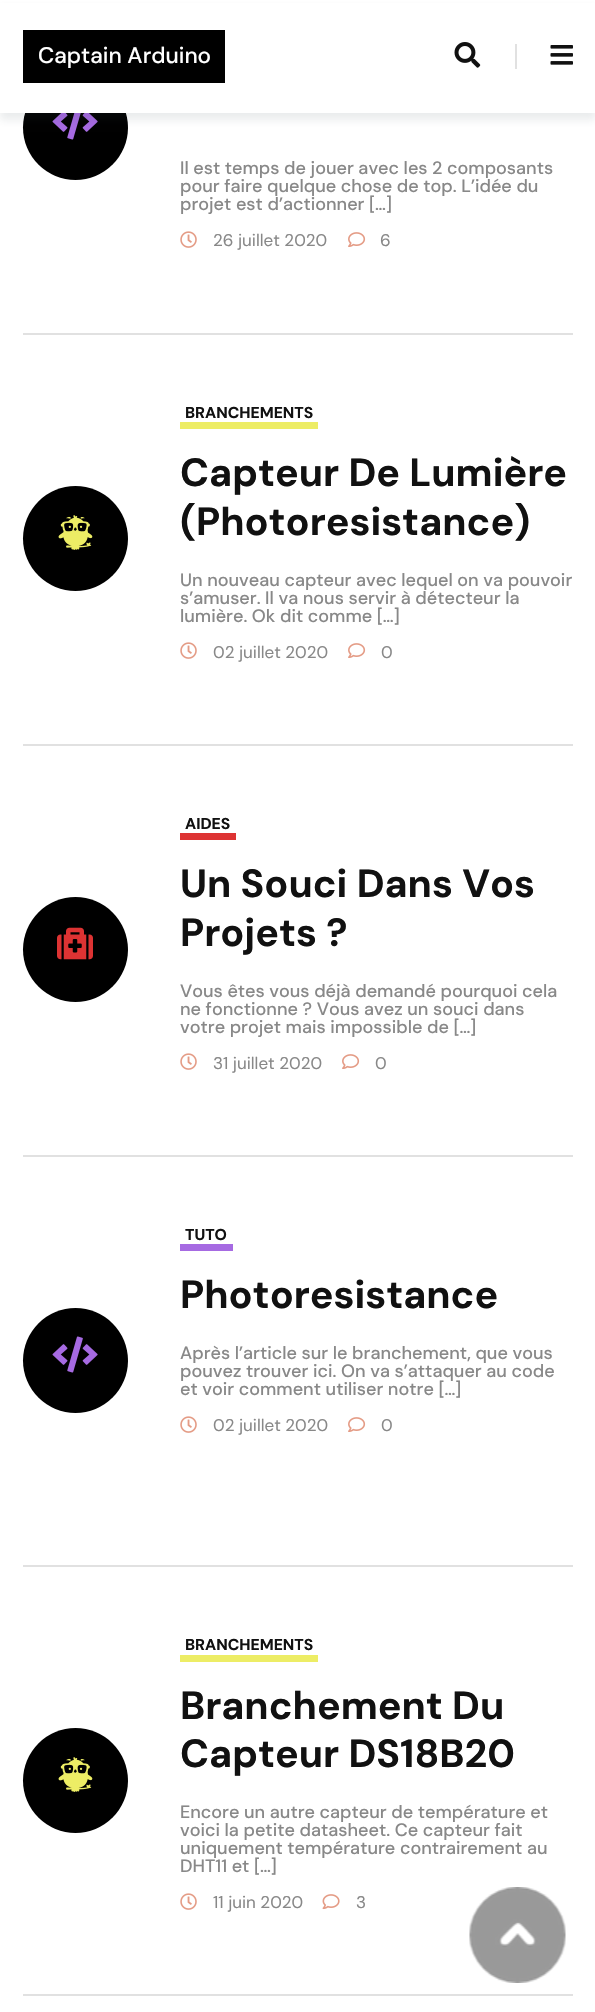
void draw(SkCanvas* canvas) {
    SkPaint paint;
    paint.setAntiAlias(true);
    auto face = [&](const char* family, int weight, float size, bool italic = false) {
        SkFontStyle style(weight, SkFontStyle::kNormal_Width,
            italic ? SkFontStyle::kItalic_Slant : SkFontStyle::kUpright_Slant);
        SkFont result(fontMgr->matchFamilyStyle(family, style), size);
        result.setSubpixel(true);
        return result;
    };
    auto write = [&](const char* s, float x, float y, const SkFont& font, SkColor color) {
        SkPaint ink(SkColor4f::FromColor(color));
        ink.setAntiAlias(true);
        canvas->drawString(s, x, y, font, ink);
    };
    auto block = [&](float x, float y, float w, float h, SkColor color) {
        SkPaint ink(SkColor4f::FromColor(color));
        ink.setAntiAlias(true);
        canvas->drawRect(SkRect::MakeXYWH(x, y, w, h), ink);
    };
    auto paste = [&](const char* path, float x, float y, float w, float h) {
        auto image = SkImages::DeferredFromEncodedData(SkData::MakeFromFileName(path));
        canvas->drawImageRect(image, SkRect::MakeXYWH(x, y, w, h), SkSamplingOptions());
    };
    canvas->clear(SK_ColorWHITE);
    paint.setColor(SK_ColorBLACK);
    canvas->drawCircle(75.5f, 127.5f, 52.5f, paint);
    paste("pic3.png", 52, 113, 46, 27);
    paint.setColor(SkColorSetARGB(26, 48, 68, 78));
    paint.setMaskFilter(SkMaskFilter::MakeBlur(kNormal_SkBlurStyle, 4));
    canvas->drawRect(SkRect::MakeXYWH(0, 8, 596, 112), paint);
    paint.setMaskFilter(nullptr);
    block(0, 3, 595, 110, SK_ColorWHITE);
    block(23, 30, 202, 53, SK_ColorBLACK);
    auto kFont1 = face("DM Sans", 500, 22.5f);
    write("Captain Arduino", 38, 63, kFont1, SK_ColorWHITE);
    block(515, 44, 2, 25, SkColorSetRGB(225, 225, 225));
    paste("pic1.png", 454, 42, 27, 26);
    paste("pic2.png", 550, 45, 23, 20);
    block(23, 333, 550, 2, SkColorSetRGB(225, 225, 225));
    auto kFont2 = face("DM Sans", 500, 18);
    write("Il est temps de jouer avec les 2 composants", 180, 174, kFont2, SkColorSetRGB(136, 136, 136));
    write("pour faire quelque chose de top. L’idée du", 180, 192, kFont2, SkColorSetRGB(136, 136, 136));
    write("projet est d’actionner […]", 180, 210, kFont2, SkColorSetRGB(136, 136, 136));
    paste("pic4.png", 180, 231, 17, 17);
    auto kFont3 = face("DM Sans", 400, 17);
    write("26 juillet 2020", 213, 246, kFont3, SkColorSetRGB(136, 136, 136));
    paste("pic5.png", 348, 232, 18, 15);
    write("6", 380, 246, kFont3, SkColorSetRGB(136, 136, 136));
    block(23, 744, 550, 2, SkColorSetRGB(225, 225, 225));
    paint.setColor(SK_ColorBLACK);
    canvas->drawCircle(75.5f, 538.5f, 52.5f, paint);
    paste("pic6.png", 58, 515, 35, 35);
    block(180, 422, 138, 7, SkColorSetRGB(237, 237, 101));
    auto kFont4 = face("DM Sans", 700, 15.75f);
    write("BRANCHEMENTS", 185, 418, kFont4, SkColorSetRGB(17, 17, 17));
    auto kFont5 = face("DM Sans", 700, 39.4f);
    write("Capteur De Lumière", 180, 486, kFont5, SkColorSetRGB(17, 17, 17));
    write("(Photoresistance)", 180, 535, kFont5, SkColorSetRGB(17, 17, 17));
    write("Un nouveau capteur avec lequel on va pouvoir", 180, 586, kFont2, SkColorSetRGB(136, 136, 136));
    write("s’amuser. Il va nous servir à détecteur la", 180, 604, kFont2, SkColorSetRGB(136, 136, 136));
    write("lumière. Ok dit comme […]", 180, 622, kFont2, SkColorSetRGB(136, 136, 136));
    paste("pic4.png", 180, 642, 17, 17);
    write("02 juillet 2020", 213, 658, kFont3, SkColorSetRGB(136, 136, 136));
    paste("pic5.png", 348, 643, 18, 15);
    write("0", 381, 658, kFont3, SkColorSetRGB(136, 136, 136));
    block(23, 1155, 550, 2, SkColorSetRGB(225, 225, 225));
    canvas->drawCircle(75.5f, 949.5f, 52.5f, paint);
    paste("pic7.png", 57, 927, 36, 33);
    block(180, 833, 56, 7, SkColorSetRGB(221, 51, 51));
    write("AIDES", 185, 829, kFont4, SkColorSetRGB(17, 17, 17));
    write("Un Souci Dans Vos", 180, 897, kFont5, SkColorSetRGB(17, 17, 17));
    write("Projets ?", 180, 946, kFont5, SkColorSetRGB(17, 17, 17));
    write("Vous êtes vous déjà demandé pourquoi cela", 180, 997, kFont2, SkColorSetRGB(136, 136, 136));
    write("ne fonctionne ? Vous avez un souci dans", 180, 1015, kFont2, SkColorSetRGB(136, 136, 136));
    write("votre projet mais impossible de […]", 180, 1033, kFont2, SkColorSetRGB(136, 136, 136));
    paste("pic4.png", 180, 1053, 17, 17);
    write("31 juillet 2020", 213, 1069, kFont3, SkColorSetRGB(136, 136, 136));
    paste("pic5.png", 342, 1054, 18, 15);
    write("0", 375, 1069, kFont3, SkColorSetRGB(136, 136, 136));
    block(23, 1565, 550, 2, SkColorSetRGB(225, 225, 225));
    canvas->drawCircle(75.5f, 1360.5f, 52.5f, paint);
    paste("pic8.png", 52, 1336, 46, 37);
    block(180, 1244, 53, 7, SkColorSetRGB(166, 106, 226));
    write("TUTO", 185, 1240, kFont4, SkColorSetRGB(17, 17, 17));
    write("Photoresistance", 180, 1308, kFont5, SkColorSetRGB(17, 17, 17));
    write("Après l’article sur le branchement, que vous", 180, 1359, kFont2, SkColorSetRGB(136, 136, 136));
    write("pouvez trouver ici. On va s’attaquer au code", 180, 1377, kFont2, SkColorSetRGB(136, 136, 136));
    write("et voir comment utiliser notre […]", 180, 1395, kFont2, SkColorSetRGB(136, 136, 136));
    paste("pic4.png", 180, 1416, 17, 17);
    write("02 juillet 2020", 213, 1431, kFont3, SkColorSetRGB(136, 136, 136));
    paste("pic5.png", 348, 1417, 18, 15);
    write("0", 381, 1431, kFont3, SkColorSetRGB(136, 136, 136));
    block(23, 1994, 550, 2, SkColorSetRGB(225, 225, 225));
    canvas->drawCircle(75.5f, 1780.5f, 52.5f, paint);
    paste("pic6.png", 58, 1757, 35, 35);
    block(180, 1655, 138, 7, SkColorSetRGB(237, 237, 101));
    write("BRANCHEMENTS", 185, 1650, kFont4, SkColorSetRGB(17, 17, 17));
    write("Branchement Du", 180, 1719, kFont5, SkColorSetRGB(17, 17, 17));
    write("Capteur DS18B20", 180, 1767, kFont5, SkColorSetRGB(17, 17, 17));
    write("Encore un autre capteur de température et", 180, 1818, kFont2, SkColorSetRGB(136, 136, 136));
    write("voici la petite datasheet. Ce capteur fait", 180, 1836, kFont2, SkColorSetRGB(136, 136, 136));
    write("uniquement température contrairement au", 180, 1854, kFont2, SkColorSetRGB(136, 136, 136));
    write("DHT11 et […]", 180, 1872, kFont2, SkColorSetRGB(136, 136, 136));
    paste("pic4.png", 180, 1893, 17, 17);
    write("11 juin 2020", 213, 1908, kFont3, SkColorSetRGB(136, 136, 136));
    paste("pic9.png", 322, 1894, 18, 16);
    write("3", 356, 1908, kFont3, SkColorSetRGB(136, 136, 136));
    paste("pic10.png", 469, 1887, 97, 96);
}
